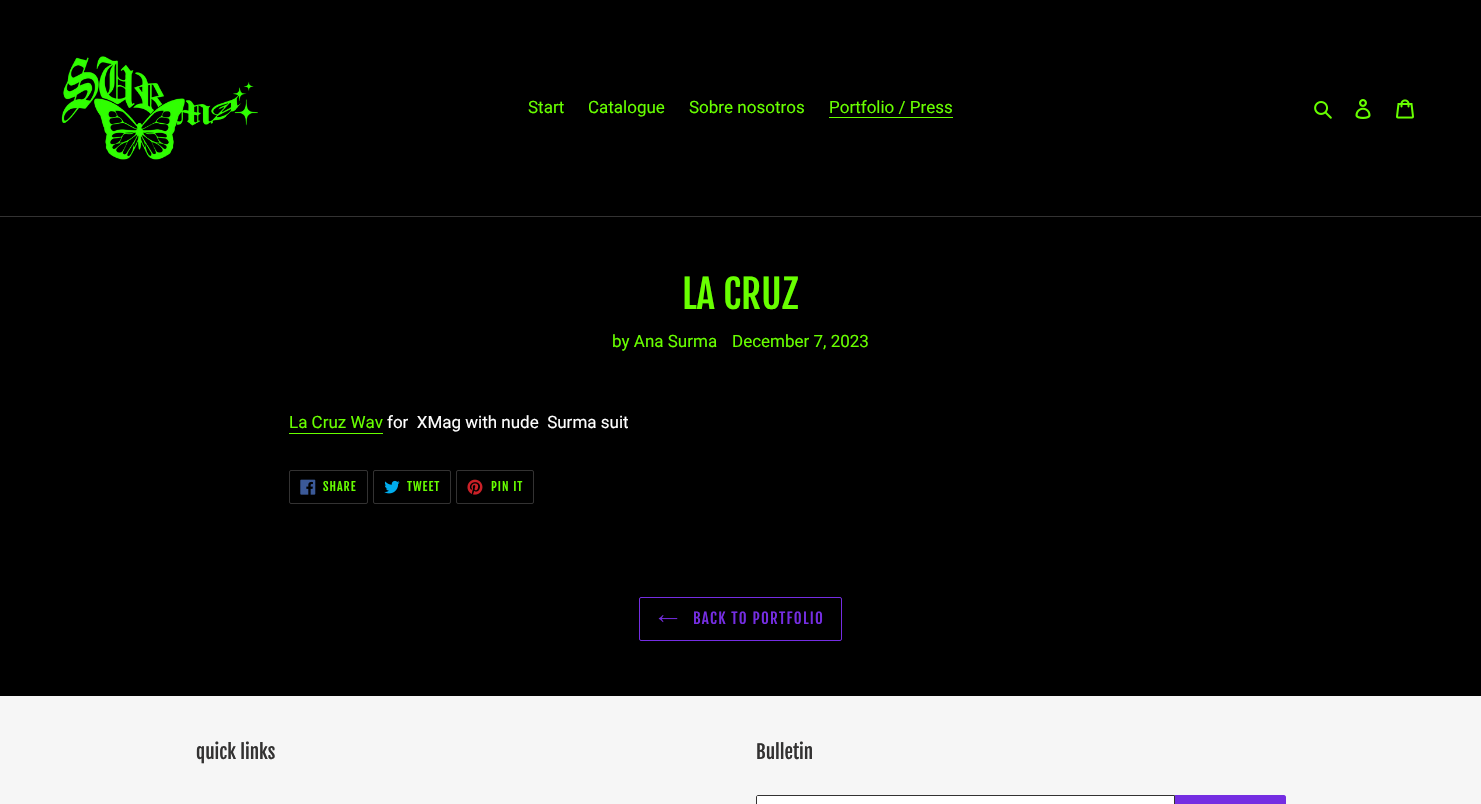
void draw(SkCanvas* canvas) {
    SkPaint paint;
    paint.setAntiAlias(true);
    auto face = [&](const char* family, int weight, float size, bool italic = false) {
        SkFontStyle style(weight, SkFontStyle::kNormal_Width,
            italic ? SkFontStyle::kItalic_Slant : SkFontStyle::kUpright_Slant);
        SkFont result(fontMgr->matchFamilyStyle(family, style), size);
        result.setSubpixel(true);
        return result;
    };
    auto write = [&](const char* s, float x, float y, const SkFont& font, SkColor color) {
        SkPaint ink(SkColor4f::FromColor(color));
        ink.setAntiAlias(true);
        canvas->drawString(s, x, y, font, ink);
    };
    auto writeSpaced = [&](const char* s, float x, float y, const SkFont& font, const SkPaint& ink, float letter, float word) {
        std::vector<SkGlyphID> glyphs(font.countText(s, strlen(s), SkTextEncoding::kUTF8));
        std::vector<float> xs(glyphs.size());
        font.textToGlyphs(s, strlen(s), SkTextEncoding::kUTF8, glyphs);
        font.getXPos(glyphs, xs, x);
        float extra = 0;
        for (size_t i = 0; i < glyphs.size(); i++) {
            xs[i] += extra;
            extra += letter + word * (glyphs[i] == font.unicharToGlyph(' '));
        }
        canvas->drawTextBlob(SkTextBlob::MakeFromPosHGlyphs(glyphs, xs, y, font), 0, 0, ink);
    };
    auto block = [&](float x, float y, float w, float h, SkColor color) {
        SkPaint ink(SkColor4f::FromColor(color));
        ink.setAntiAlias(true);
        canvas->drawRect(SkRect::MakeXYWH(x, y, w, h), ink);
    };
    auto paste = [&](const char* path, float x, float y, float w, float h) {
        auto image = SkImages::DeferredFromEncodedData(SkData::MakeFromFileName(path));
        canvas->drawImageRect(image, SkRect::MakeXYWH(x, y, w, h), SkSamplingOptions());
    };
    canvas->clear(SK_ColorBLACK);
    block(0, 216, 1481, 1, SkColorSetRGB(51, 50, 50));
    paste("pic1.png", 61, 56, 197, 104);
    auto kFont1 = face("Roboto", 400, 17);
    write("Start", 528, 113, kFont1, SkColorSetRGB(104, 255, 0));
    write("Catalogue", 588, 113, kFont1, SkColorSetRGB(104, 255, 0));
    write("Sobre nosotros", 689, 113, kFont1, SkColorSetRGB(104, 255, 0));
    write("Portfolio / Press", 829, 113, kFont1, SkColorSetRGB(104, 255, 0));
    block(829, 117, 124, 1, SkColorSetRGB(104, 255, 0));
    paste("pic2.png", 1314, 101, 18, 18);
    paste("pic3.png", 1355, 99, 16, 20);
    paste("pic4.png", 1396, 99, 18, 20);
    auto kFont2 = face("Fjalla One", 400, 39);
    write("LA CRUZ", 682, 309, kFont2, SkColorSetRGB(104, 255, 0));
    write("by Ana Surma", 612, 347, kFont1, SkColorSetRGB(104, 255, 0));
    write("December 7, 2023", 732, 347, kFont1, SkColorSetRGB(104, 255, 0));
    write("La Cruz Wav", 289, 428, kFont1, SkColorSetRGB(104, 255, 0));
    block(289, 433, 94, 1, SkColorSetRGB(104, 255, 0));
    write("for  XMag with nude  Surma suit", 387, 428, kFont1, SK_ColorWHITE);
    paint.setStyle(SkPaint::kStroke_Style);
    paint.setStrokeWidth(1);
    paint.setColor(SkColorSetRGB(51, 50, 50));
    canvas->drawRoundRect(SkRect::MakeXYWH(289.5f, 470.5f, 78, 33), 1.5f, 1.5f, paint);
    paste("pic5.png", 300, 479, 16, 16);
    auto kFont3 = face("Fjalla One", 400, 12);
    paint.setStyle(SkPaint::kFill_Style);
    paint.setColor(SkColorSetRGB(104, 255, 0));
    writeSpaced("SHARE", 323, 491, kFont3, paint, 1, 0);
    paint.setStyle(SkPaint::kStroke_Style);
    paint.setColor(SkColorSetRGB(51, 50, 50));
    canvas->drawRoundRect(SkRect::MakeXYWH(373.5f, 470.5f, 77, 33), 1.5f, 1.5f, paint);
    paste("pic6.png", 384, 480, 16, 14);
    paint.setStyle(SkPaint::kFill_Style);
    paint.setColor(SkColorSetRGB(104, 255, 0));
    writeSpaced("TWEET", 407, 491, kFont3, paint, 1, 0);
    paint.setStyle(SkPaint::kStroke_Style);
    paint.setColor(SkColorSetRGB(51, 50, 50));
    canvas->drawRoundRect(SkRect::MakeXYWH(456.5f, 470.5f, 77, 33), 1.5f, 1.5f, paint);
    paste("pic7.png", 467, 479, 16, 16);
    paint.setStyle(SkPaint::kFill_Style);
    paint.setColor(SkColorSetRGB(104, 255, 0));
    writeSpaced("PIN IT", 491, 491, kFont3, paint, 1, 0);
    paint.setStyle(SkPaint::kStroke_Style);
    paint.setColor(SkColorSetRGB(117, 45, 226));
    canvas->drawRoundRect(SkRect::MakeXYWH(639.5f, 597.5f, 202, 43), 1.5f, 1.5f, paint);
    paste("pic8.png", 658, 615, 20, 8);
    auto kFont4 = face("Fjalla One", 400, 15);
    paint.setStyle(SkPaint::kFill_Style);
    writeSpaced("BACK TO PORTFOLIO", 693, 624, kFont4, paint, 1.25f, 0);
    block(0, 696, 1481, 108, SkColorSetRGB(246, 246, 246));
    auto kFont5 = face("Fjalla One", 400, 19);
    write("quick links", 196, 759, kFont5, SkColorSetRGB(51, 50, 50));
    write("Bulletin", 756, 759, kFont5, SkColorSetRGB(51, 50, 50));
    paint.setColor(SK_ColorWHITE);
    canvas->drawPath(SkPathBuilder().moveTo(758, 795.5f).lineTo(1174.5f, 795.5f).lineTo(1174.5f, 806.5f).lineTo(758, 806.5f).cubicTo(757, 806.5f, 756.5f, 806, 756.5f, 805).lineTo(756.5f, 797).cubicTo(756.5f, 796, 757, 795.5f, 758, 795.5f).close().detach(), paint);
    paint.setStyle(SkPaint::kStroke_Style);
    paint.setColor(SkColorSetRGB(51, 50, 50));
    canvas->drawPath(SkPathBuilder().moveTo(758, 795.5f).lineTo(1174.5f, 795.5f).lineTo(1174.5f, 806.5f).lineTo(758, 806.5f).cubicTo(757, 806.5f, 756.5f, 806, 756.5f, 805).lineTo(756.5f, 797).cubicTo(756.5f, 796, 757, 795.5f, 758, 795.5f).close().detach(), paint);
    paint.setStyle(SkPaint::kFill_Style);
    paint.setColor(SkColorSetRGB(117, 45, 226));
    canvas->drawPath(SkPathBuilder().moveTo(1175, 795).lineTo(1284, 795).cubicTo(1285, 795, 1286, 796, 1286, 797).lineTo(1286, 804).cubicTo(1286, 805, 1285, 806, 1284, 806).lineTo(1175, 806).close().detach(), paint);
}
